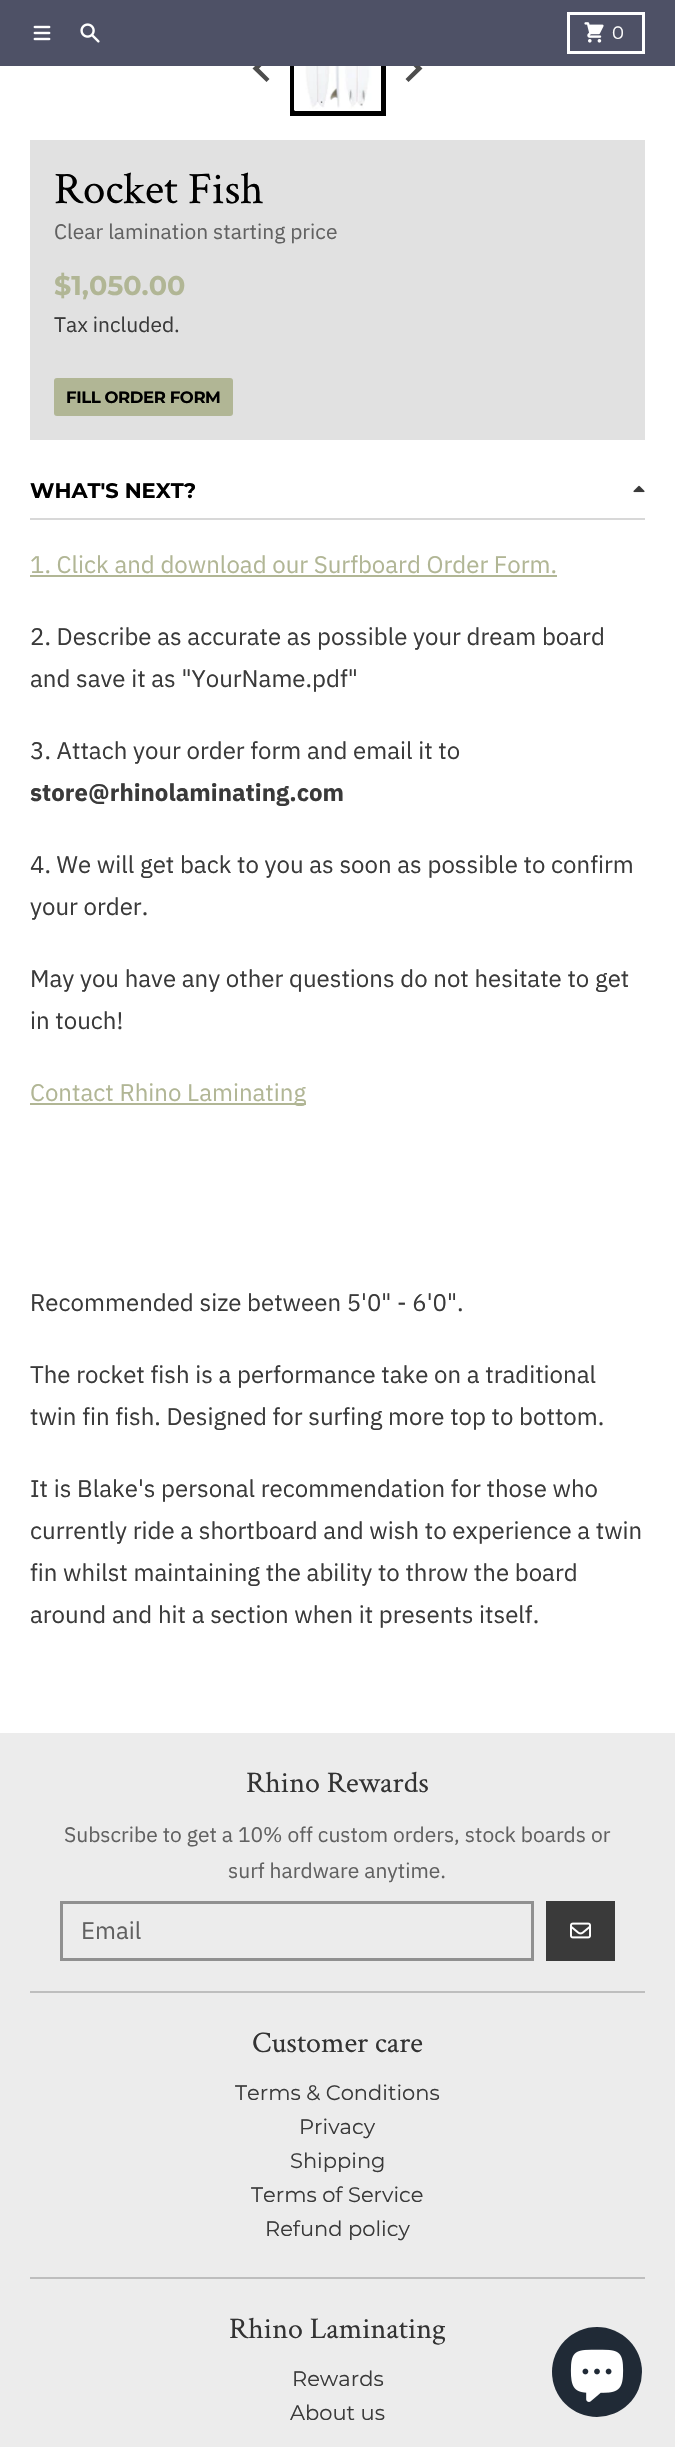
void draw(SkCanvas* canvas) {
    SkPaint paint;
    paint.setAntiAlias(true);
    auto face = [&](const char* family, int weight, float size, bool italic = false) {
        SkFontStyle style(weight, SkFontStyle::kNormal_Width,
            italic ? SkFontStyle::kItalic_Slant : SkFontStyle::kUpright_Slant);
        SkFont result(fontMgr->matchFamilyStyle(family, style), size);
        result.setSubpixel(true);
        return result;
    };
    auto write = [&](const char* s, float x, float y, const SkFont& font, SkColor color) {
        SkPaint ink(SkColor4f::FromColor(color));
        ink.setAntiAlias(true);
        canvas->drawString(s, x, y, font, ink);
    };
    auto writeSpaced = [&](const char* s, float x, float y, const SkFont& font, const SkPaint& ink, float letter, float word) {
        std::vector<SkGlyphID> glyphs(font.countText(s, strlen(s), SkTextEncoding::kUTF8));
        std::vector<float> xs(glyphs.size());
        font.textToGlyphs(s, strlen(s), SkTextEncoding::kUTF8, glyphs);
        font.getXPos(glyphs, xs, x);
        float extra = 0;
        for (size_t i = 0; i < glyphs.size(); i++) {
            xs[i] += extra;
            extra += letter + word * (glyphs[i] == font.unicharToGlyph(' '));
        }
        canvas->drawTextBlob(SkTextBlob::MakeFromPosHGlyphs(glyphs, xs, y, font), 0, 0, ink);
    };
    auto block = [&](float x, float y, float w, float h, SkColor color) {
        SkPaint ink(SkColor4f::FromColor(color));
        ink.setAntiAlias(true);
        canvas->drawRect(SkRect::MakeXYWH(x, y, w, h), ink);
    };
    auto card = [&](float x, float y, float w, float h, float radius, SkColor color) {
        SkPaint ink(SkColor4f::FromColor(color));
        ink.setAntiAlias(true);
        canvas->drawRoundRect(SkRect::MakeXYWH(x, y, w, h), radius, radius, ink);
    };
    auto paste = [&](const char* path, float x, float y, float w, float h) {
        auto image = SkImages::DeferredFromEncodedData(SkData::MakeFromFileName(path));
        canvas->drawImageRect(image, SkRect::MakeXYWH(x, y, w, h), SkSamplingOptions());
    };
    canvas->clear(SkColorSetRGB(236, 236, 236));
    block(0, 66, 675, 1667, SK_ColorWHITE);
    paint.setStyle(SkPaint::kStroke_Style);
    paint.setStrokeWidth(5);
    paint.setColor(SK_ColorBLACK);
    canvas->drawRect(SkRect::MakeXYWH(292.5f, 22.5f, 91, 91), paint);
    paint.setStyle(SkPaint::kFill_Style);
    paint.setColor(SkColorSetRGB(77, 77, 77));
    canvas->drawPath(SkPathBuilder().moveTo(266.5f, 54.5f).lineTo(269.5f, 58).lineTo(259, 68.5f).lineTo(269.5f, 79).lineTo(266.5f, 82).lineTo(252.5f, 68.5f).close().detach(), paint);
    canvas->drawPath(SkPathBuilder().moveTo(408.5f, 54.5f).lineTo(405.5f, 58).lineTo(416, 68.5f).lineTo(405.5f, 79).lineTo(408.5f, 82).lineTo(422.5f, 68.5f).close().detach(), paint);
    block(0, 0, 675, 66, SkColorSetRGB(78, 81, 102));
    paste("pic1.png", 33, 25, 18, 16);
    paste("pic2.png", 80, 23, 20, 20);
    paint.setStyle(SkPaint::kStroke_Style);
    paint.setStrokeWidth(3);
    paint.setColor(SK_ColorWHITE);
    canvas->drawRect(SkRect::MakeXYWH(568.5f, 13.5f, 75, 39), paint);
    paste("pic3.png", 584, 22, 20, 21);
    auto kFont1 = face("Montserrat", 400, 18);
    write("0", 612, 39, kFont1, SK_ColorWHITE);
    paste("pic4.png", 294, 66, 87, 45);
    block(30, 140, 615, 300, SkColorSetRGB(225, 225, 225));
    auto kFont2 = face("Crimson Text", 400, 45);
    write("Rocket Fish", 54, 203, kFont2, SK_ColorBLACK);
    auto kFont3 = face("IBM Plex Sans", 400, 21);
    write("Clear lamination starting price", 54, 239, kFont3, SkColorSetRGB(97, 97, 97));
    auto kFont4 = face("Montserrat", 700, 27);
    write("$1,050.00", 54, 295, kFont4, SkColorSetRGB(177, 182, 149));
    write("Tax included.", 54, 332, kFont3, SkColorSetRGB(58, 58, 58));
    card(54, 378, 179, 38, 3, SkColorSetRGB(177, 182, 149));
    auto kFont5 = face("Montserrat", 700, 16.5f);
    paint.setStyle(SkPaint::kFill_Style);
    paint.setColor(SK_ColorBLACK);
    writeSpaced("FILL ORDER FORM", 66, 403, kFont5, paint, -0.4f, 0);
    block(30, 518, 615, 2, SkColorSetRGB(216, 216, 216));
    auto kFont6 = face("Montserrat", 700, 21);
    write("WHAT'S NEXT?", 30, 498, kFont6, SK_ColorBLACK);
    paste("pic5.png", 633, 485, 12, 8);
    auto kFont7 = face("IBM Plex Sans", 400, 24);
    write("1. Click and download our Surfboard Order Form.", 30, 573, kFont7, SkColorSetRGB(177, 182, 149));
    block(30, 575, 527, 2, SkColorSetRGB(177, 182, 149));
    write("2. Describe as accurate as possible your dream board", 30, 645, kFont7, SkColorSetRGB(58, 58, 58));
    write("and save it as \"YourName.pdf\"", 30, 687, kFont7, SkColorSetRGB(58, 58, 58));
    write("3. Attach your order form and email it to", 30, 759, kFont7, SkColorSetRGB(58, 58, 58));
    auto kFont8 = face("IBM Plex Sans", 700, 24);
    write("store@rhinolaminating.com", 30, 801, kFont8, SkColorSetRGB(58, 58, 58));
    write("4. We will get back to you as soon as possible to confirm", 30, 873, kFont7, SkColorSetRGB(58, 58, 58));
    write("your order.", 30, 915, kFont7, SkColorSetRGB(58, 58, 58));
    write("May you have any other questions do not hesitate to get", 30, 987, kFont7, SkColorSetRGB(58, 58, 58));
    write("in touch!", 30, 1029, kFont7, SkColorSetRGB(58, 58, 58));
    block(30, 1103, 276, 2, SkColorSetRGB(177, 182, 149));
    write("Contact Rhino Laminating", 30, 1101, kFont7, SkColorSetRGB(177, 182, 149));
    write("Recommended size between 5'0\" - 6'0\".", 30, 1311, kFont7, SkColorSetRGB(58, 58, 58));
    write("The rocket fish is a performance take on a traditional", 30, 1383, kFont7, SkColorSetRGB(58, 58, 58));
    write("twin fin fish. Designed for surfing more top to bottom.", 30, 1425, kFont7, SkColorSetRGB(58, 58, 58));
    write("It is Blake's personal recommendation for those who", 30, 1497, kFont7, SkColorSetRGB(58, 58, 58));
    write("currently ride a shortboard and wish to experience a twin", 30, 1539, kFont7, SkColorSetRGB(58, 58, 58));
    write("fin whilst maintaining the ability to throw the board", 30, 1581, kFont7, SkColorSetRGB(58, 58, 58));
    write("around and hit a section when it presents itself.", 30, 1623, kFont7, SkColorSetRGB(58, 58, 58));
    auto kFont9 = face("Crimson Text", 400, 30);
    write("Rhino Rewards", 246, 1792, kFont9, SkColorSetRGB(51, 51, 51));
    write("Subscribe to get a 10% off custom orders, stock boards or", 64, 1842, kFont3, SkColorSetRGB(97, 97, 97));
    write("surf hardware anytime.", 228, 1878, kFont3, SkColorSetRGB(97, 97, 97));
    paint.setStyle(SkPaint::kStroke_Style);
    paint.setColor(SkColorSetRGB(144, 144, 144));
    canvas->drawRect(SkRect::MakeXYWH(61.5f, 1902.5f, 471, 57), paint);
    write("Email", 81, 1939, kFont7, SkColorSetRGB(97, 97, 97));
    block(546, 1901, 69, 60, SkColorSetRGB(58, 58, 58));
    paste("pic6.png", 570, 1922, 21, 17);
    block(30, 1991, 615, 2, SkColorSetRGB(190, 190, 190));
    write("Customer care", 252, 2052, kFont9, SkColorSetRGB(51, 51, 51));
    auto kFont10 = face("Montserrat", 400, 21);
    write("Terms & Conditions", 235, 2100, kFont10, SkColorSetRGB(58, 58, 58));
    write("Privacy", 299, 2134, kFont10, SkColorSetRGB(58, 58, 58));
    write("Shipping", 290, 2168, kFont10, SkColorSetRGB(58, 58, 58));
    write("Terms of Service", 251, 2202, kFont10, SkColorSetRGB(58, 58, 58));
    write("Refund policy", 265, 2236, kFont10, SkColorSetRGB(58, 58, 58));
    block(30, 2277, 615, 2, SkColorSetRGB(190, 190, 190));
    write("Rhino Laminating", 229, 2338, kFont9, SkColorSetRGB(51, 51, 51));
    write("Rewards", 292, 2386, kFont10, SkColorSetRGB(58, 58, 58));
    write("About us", 290, 2420, kFont10, SkColorSetRGB(58, 58, 58));
    paint.setStyle(SkPaint::kFill_Style);
    paint.setColor(SkColorSetRGB(32, 42, 54));
    canvas->drawCircle(597, 2372, 45, paint);
    paste("pic7.png", 570, 2349, 54, 53);
}
